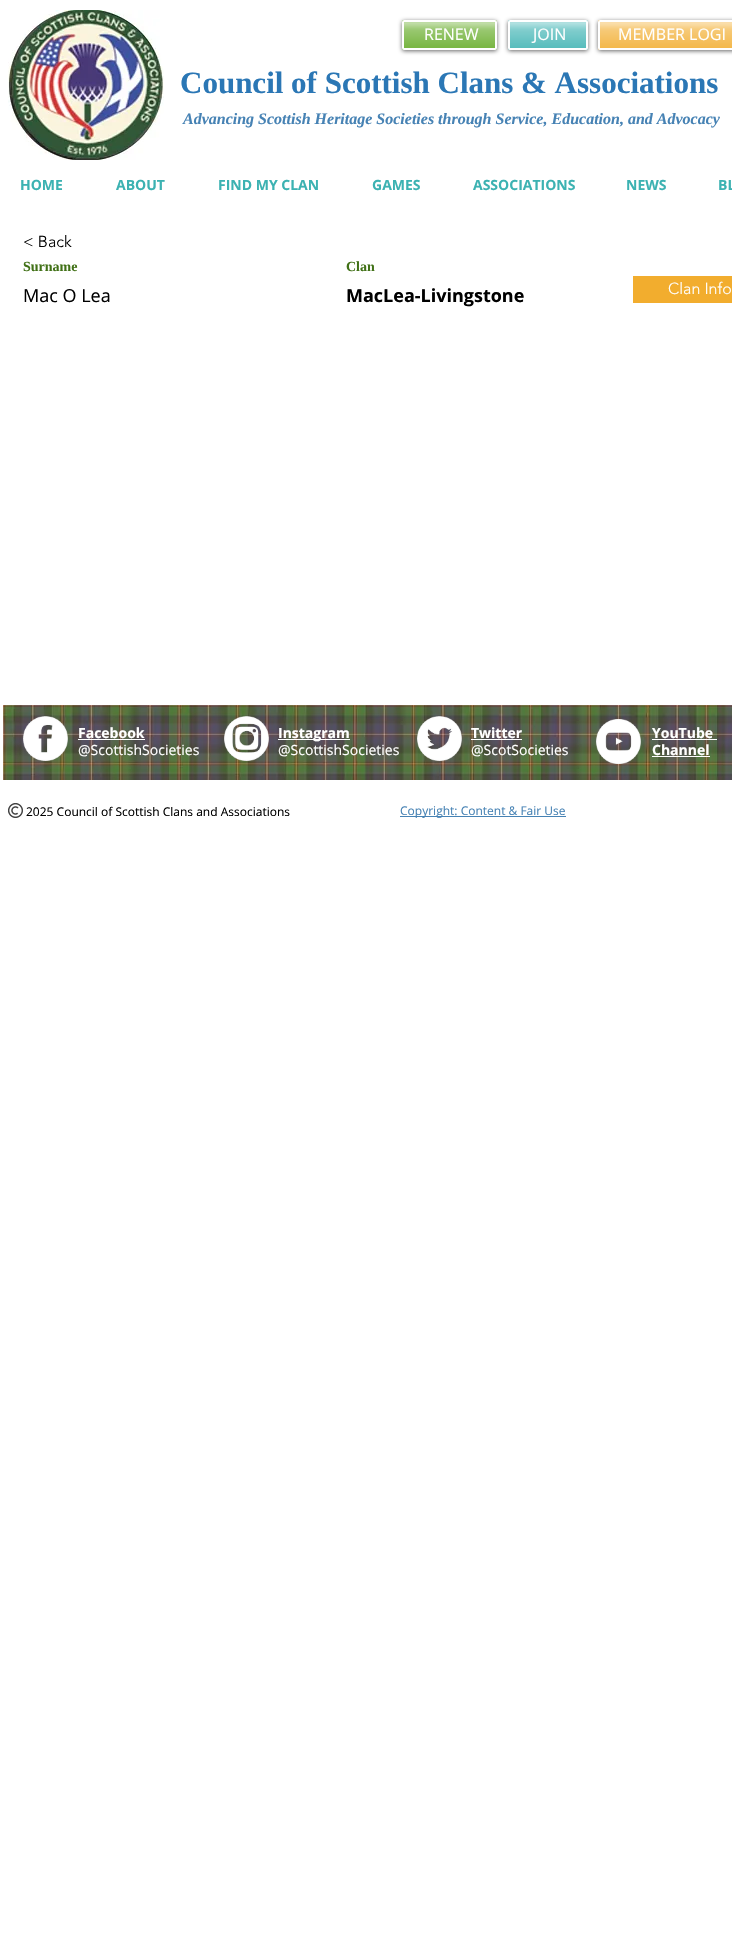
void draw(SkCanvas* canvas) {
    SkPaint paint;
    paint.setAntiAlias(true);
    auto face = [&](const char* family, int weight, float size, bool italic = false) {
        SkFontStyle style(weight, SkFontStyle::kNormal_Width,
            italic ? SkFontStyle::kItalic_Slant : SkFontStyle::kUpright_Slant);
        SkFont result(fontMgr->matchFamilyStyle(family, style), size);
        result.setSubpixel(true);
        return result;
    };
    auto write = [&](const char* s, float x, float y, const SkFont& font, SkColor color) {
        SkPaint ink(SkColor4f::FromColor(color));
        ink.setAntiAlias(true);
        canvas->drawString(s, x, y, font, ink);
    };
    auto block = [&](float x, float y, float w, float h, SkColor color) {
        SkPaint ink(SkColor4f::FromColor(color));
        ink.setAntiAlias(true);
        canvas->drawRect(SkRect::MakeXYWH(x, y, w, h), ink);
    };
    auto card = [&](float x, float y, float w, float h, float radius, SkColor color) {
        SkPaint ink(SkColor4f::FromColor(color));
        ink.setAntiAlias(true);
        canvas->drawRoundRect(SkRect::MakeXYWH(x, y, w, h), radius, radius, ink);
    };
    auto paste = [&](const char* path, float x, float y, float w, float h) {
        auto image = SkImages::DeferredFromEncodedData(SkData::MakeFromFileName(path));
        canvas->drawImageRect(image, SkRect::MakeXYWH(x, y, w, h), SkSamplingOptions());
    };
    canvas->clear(SK_ColorWHITE);
    paste("pic1.png", 8, 10, 156, 150);
    paint.setColor(SkColorSetARGB(153, 0, 0, 0));
    paint.setMaskFilter(SkMaskFilter::MakeBlur(kNormal_SkBlurStyle, 2));
    canvas->drawRoundRect(SkRect::MakeXYWH(402, 21, 95, 30), 2, 2, paint);
    paint.setMaskFilter(nullptr);
    card(402, 20, 95, 30, 2, SkColorSetRGB(98, 170, 35));
    paste("pic2.png", 402, 22, 95, 28);
    paint.setStyle(SkPaint::kStroke_Style);
    paint.setStrokeWidth(2);
    paint.setColor(SK_ColorWHITE);
    canvas->drawRoundRect(SkRect::MakeXYWH(403, 21, 93, 28), 1, 1, paint);
    auto kFont1 = face("Open Sans", 400, 16);
    write("RENEW", 424, 40, kFont1, SK_ColorWHITE);
    paint.setStyle(SkPaint::kFill_Style);
    paint.setColor(SkColorSetARGB(153, 0, 0, 0));
    paint.setMaskFilter(SkMaskFilter::MakeBlur(kNormal_SkBlurStyle, 2));
    canvas->drawRoundRect(SkRect::MakeXYWH(508, 21, 80, 30), 2, 2, paint);
    paint.setMaskFilter(nullptr);
    card(508, 20, 80, 30, 2, SkColorSetRGB(60, 178, 178));
    paste("pic3.png", 508, 22, 80, 28);
    paint.setStyle(SkPaint::kStroke_Style);
    paint.setColor(SK_ColorWHITE);
    canvas->drawRoundRect(SkRect::MakeXYWH(509, 21, 78, 28), 1, 1, paint);
    write("JOIN", 533, 40, kFont1, SK_ColorWHITE);
    paint.setStyle(SkPaint::kFill_Style);
    paint.setColor(SkColorSetARGB(153, 0, 0, 0));
    paint.setMaskFilter(SkMaskFilter::MakeBlur(kNormal_SkBlurStyle, 2));
    canvas->drawRoundRect(SkRect::MakeXYWH(598, 21, 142, 30), 2, 2, paint);
    paint.setMaskFilter(nullptr);
    card(598, 20, 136, 30, 2, SkColorSetRGB(242, 173, 46));
    paste("pic4.png", 598, 22, 134, 28);
    paint.setStyle(SkPaint::kStroke_Style);
    paint.setColor(SK_ColorWHITE);
    canvas->drawRoundRect(SkRect::MakeXYWH(599, 21, 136, 28), 1, 1, paint);
    write("MEMBER LOGI", 618, 40, kFont1, SK_ColorWHITE);
    auto kFont2 = face("Liberation Serif", 700, 31);
    write("Council of Scottish Clans & Associations", 180, 93, kFont2, SkColorSetRGB(43, 119, 181));
    auto kFont3 = face("Liberation Serif", 700, 16, true);
    write("Advancing Scottish Heritage Societies through Service, Education, and Advocacy", 183, 124, kFont3, SkColorSetRGB(70, 130, 180));
    auto kFont4 = face("Open Sans", 700, 14);
    write("HOME", 20, 190, kFont4, SkColorSetRGB(60, 178, 178));
    write("ABOUT", 116, 190, kFont4, SkColorSetRGB(60, 178, 178));
    write("FIND MY CLAN", 218, 190, kFont4, SkColorSetRGB(60, 178, 178));
    write("GAMES", 372, 190, kFont4, SkColorSetRGB(60, 178, 178));
    write("ASSOCIATIONS", 473, 190, kFont4, SkColorSetRGB(60, 178, 178));
    write("NEWS", 626, 190, kFont4, SkColorSetRGB(60, 178, 178));
    write("BL", 718, 190, kFont4, SkColorSetRGB(60, 178, 178));
    auto kFont5 = face("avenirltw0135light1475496", 300, 16);
    write("< Back", 23, 247, kFont5, SK_ColorBLACK);
    auto kFont6 = face("Liberation Serif", 700, 14);
    write("Surname", 23, 271, kFont6, SkColorSetRGB(65, 113, 23));
    write("Clan", 346, 271, kFont6, SkColorSetRGB(65, 113, 23));
    auto kFont7 = face("Open Sans", 400, 18);
    write("Mac O Lea", 23, 302, kFont7, SK_ColorBLACK);
    auto kFont8 = face("Open Sans", 700, 18);
    write("MacLea-Livingstone", 346, 302, kFont8, SK_ColorBLACK);
    block(633, 276, 99, 27, SkColorSetRGB(242, 173, 46));
    write("Clan Info", 668, 294, kFont5, SK_ColorWHITE);
    paste("pic5.png", 3, 705, 729, 75);
    paste("pic6.png", 23, 716, 45, 45);
    write("Facebook", 78, 738, kFont4, SK_ColorWHITE);
    block(78, 739, 67, 1, SK_ColorWHITE);
    auto kFont9 = face("Open Sans", 400, 14);
    write("@ScottishSocieties", 78, 755, kFont9, SK_ColorWHITE);
    paste("pic7.png", 224, 716, 45, 45);
    block(278, 739, 72, 1, SK_ColorWHITE);
    write("Instagram", 278, 738, kFont4, SK_ColorWHITE);
    write("@ScottishSocieties", 278, 755, kFont9, SK_ColorWHITE);
    paste("pic8.png", 417, 716, 45, 45);
    write("Twitter", 471, 738, kFont4, SK_ColorWHITE);
    block(471, 739, 51, 1, SK_ColorWHITE);
    write("@ScotSocieties", 471, 755, kFont9, SK_ColorWHITE);
    paste("pic9.png", 596, 719, 45, 45);
    write("YouTube", 652, 738, kFont4, SK_ColorWHITE);
    block(652, 739, 65, 1, SK_ColorWHITE);
    write("Channel", 652, 755, kFont4, SK_ColorWHITE);
    block(652, 756, 58, 1, SK_ColorWHITE);
    paste("pic10.png", 8, 803, 15, 15);
    auto kFont10 = face("Open Sans", 400, 12);
    write("2025 Council of Scottish Clans and Associations", 26, 816, kFont10, SK_ColorBLACK);
    block(400, 816, 166, 1, SkColorSetRGB(70, 130, 180));
    write("Copyright: Content & Fair Use", 400, 815, kFont10, SkColorSetRGB(70, 130, 180));
}
